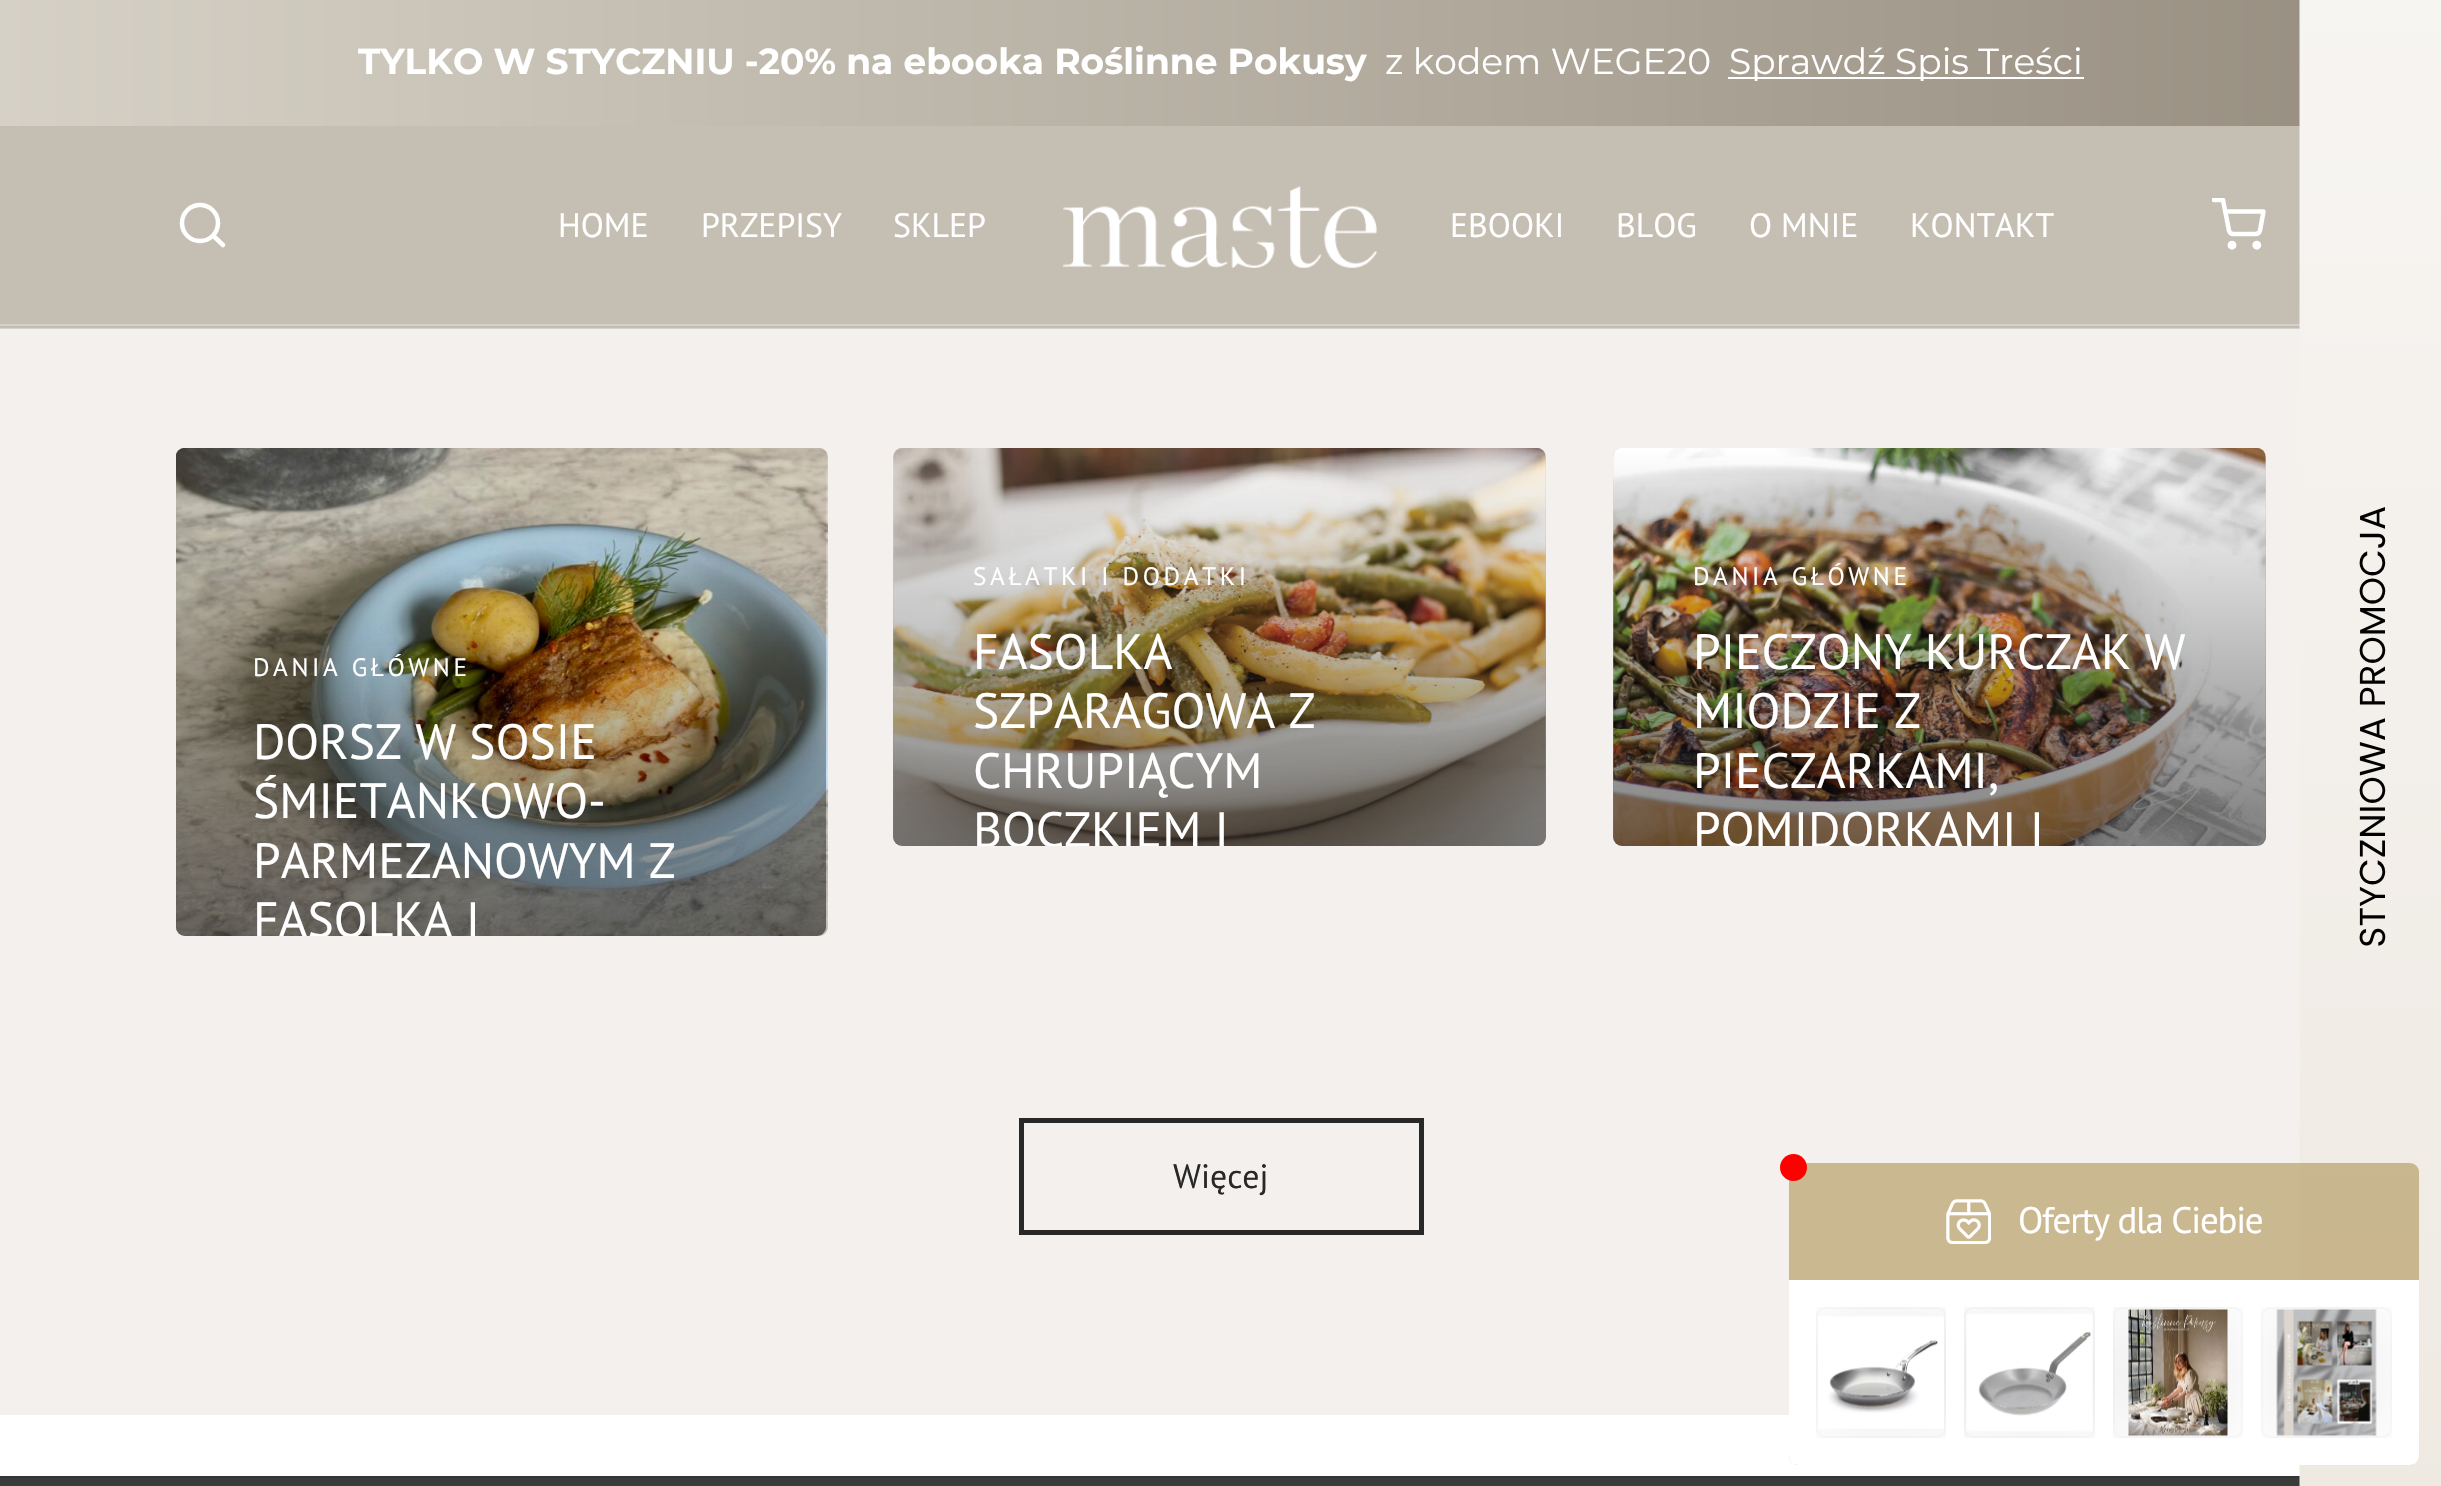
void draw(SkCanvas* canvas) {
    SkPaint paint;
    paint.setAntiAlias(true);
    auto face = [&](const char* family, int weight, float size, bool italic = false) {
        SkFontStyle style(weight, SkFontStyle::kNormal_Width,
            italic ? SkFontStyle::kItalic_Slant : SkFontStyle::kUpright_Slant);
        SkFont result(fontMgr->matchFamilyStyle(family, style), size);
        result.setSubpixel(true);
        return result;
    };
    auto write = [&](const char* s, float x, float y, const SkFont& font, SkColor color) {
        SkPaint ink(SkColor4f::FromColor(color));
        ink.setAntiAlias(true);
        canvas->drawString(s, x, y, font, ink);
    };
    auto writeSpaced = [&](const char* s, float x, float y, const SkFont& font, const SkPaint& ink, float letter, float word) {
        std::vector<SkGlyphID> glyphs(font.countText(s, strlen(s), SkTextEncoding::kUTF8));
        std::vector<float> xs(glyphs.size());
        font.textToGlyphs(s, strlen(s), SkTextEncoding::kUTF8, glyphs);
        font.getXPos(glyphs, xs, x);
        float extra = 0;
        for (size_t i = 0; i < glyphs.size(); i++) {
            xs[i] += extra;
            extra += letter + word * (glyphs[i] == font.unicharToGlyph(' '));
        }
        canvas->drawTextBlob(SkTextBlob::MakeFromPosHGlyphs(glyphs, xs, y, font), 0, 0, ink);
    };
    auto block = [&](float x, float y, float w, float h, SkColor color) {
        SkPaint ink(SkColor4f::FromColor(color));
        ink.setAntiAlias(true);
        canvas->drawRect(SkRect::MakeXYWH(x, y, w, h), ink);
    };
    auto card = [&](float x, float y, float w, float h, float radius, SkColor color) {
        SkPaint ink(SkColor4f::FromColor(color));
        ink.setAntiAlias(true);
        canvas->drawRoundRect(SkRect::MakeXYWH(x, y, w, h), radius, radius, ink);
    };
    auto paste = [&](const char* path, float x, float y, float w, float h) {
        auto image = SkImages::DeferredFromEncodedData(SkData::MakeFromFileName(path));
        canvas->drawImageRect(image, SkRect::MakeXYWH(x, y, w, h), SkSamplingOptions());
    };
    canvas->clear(SK_ColorWHITE);
    {
        const SkColor colors[] = {SkColorSetRGB(214, 209, 198), SkColorSetRGB(150, 141, 127)};
        const float stops[] = {0, 1};
        const SkPoint ends[] = {{0, 63}, {2441, 63}};
        paint.setShader(SkGradientShader::MakeLinear(ends, colors, stops, 2, SkTileMode::kClamp));
        paint.setAlpha(255);
    }
    canvas->drawRect(SkRect::MakeXYWH(0, 0, 2300, 126), paint);
    auto kFont1 = face("Montserrat", 700, 36);
    write("TYLKO W STYCZNIU -20% na ebooka Roślinne Pokusy", 358, 74, kFont1, SK_ColorWHITE);
    auto kFont2 = face("Montserrat", 400, 36);
    write("z kodem WEGE20", 1385, 74, kFont2, SK_ColorWHITE);
    block(1728, 77, 356, 2, SK_ColorWHITE);
    write("Sprawdź Spis Treści", 1729, 74, kFont2, SK_ColorWHITE);
    block(0, 126, 2300, 198, SkColorSetRGB(197, 190, 179));
    block(0, 324, 2300, 5, SkColorSetRGB(214, 210, 202));
    block(0, 326, 2300, 2, SkColorSetRGB(193, 189, 182));
    block(0, 329, 2300, 1086, SkColorSetRGB(244, 240, 237));
    block(0, 1478, 2300, 8, SkColorSetRGB(58, 58, 58));
    block(0, 1476, 2300, 2, SkColorSetRGB(52, 52, 52));
    paste("pic1.png", 2299, 0, 142, 1486);
    paint.setStyle(SkPaint::kStroke_Style);
    paint.setStrokeWidth(4.5f);
    paint.setShader(nullptr);
    paint.setColor(SK_ColorWHITE);
    canvas->drawCircle(200, 223, 18, paint);
    paint.setStrokeCap(SkPaint::kRound_Cap);
    paint.setStrokeJoin(SkPaint::kRound_Join);
    canvas->drawPath(SkPathBuilder().moveTo(223, 245).lineTo(213, 235.5f).detach(), paint);
    auto kFont3 = face("PT Sans", 400, 33.75f);
    write("HOME", 558, 237, kFont3, SK_ColorWHITE);
    write("PRZEPISY", 701, 237, kFont3, SK_ColorWHITE);
    write("SKLEP", 893, 237, kFont3, SK_ColorWHITE);
    paste("pic2.png", 1063, 186, 314, 82);
    write("EBOOKI", 1450, 237, kFont3, SK_ColorWHITE);
    write("BLOG", 1616, 237, kFont3, SK_ColorWHITE);
    write("O MNIE", 1749, 237, kFont3, SK_ColorWHITE);
    write("KONTAKT", 1910, 237, kFont3, SK_ColorWHITE);
    paint.setStrokeCap(SkPaint::kButt_Cap);
    paint.setStrokeJoin(SkPaint::kMiter_Join);
    canvas->drawCircle(2232, 245.2f, 2.2f, paint);
    canvas->drawCircle(2256.8f, 245.2f, 2.2f, paint);
    canvas->save();
    canvas->clipRect(SkRect::MakeXYWH(2212, 198, 54, 54));
    paint.setStrokeCap(SkPaint::kRound_Cap);
    paint.setStrokeJoin(SkPaint::kRound_Join);
    canvas->drawPath(SkPathBuilder().moveTo(2214, 200).lineTo(2223, 200).lineTo(2229, 230.5f).cubicTo(2229.5f, 232.5f, 2231.5f, 234, 2233.5f, 234).lineTo(2255.5f, 234).cubicTo(2257.5f, 234, 2259.5f, 232.5f, 2260, 230.5f).lineTo(2263.5f, 211.5f).lineTo(2225, 211.5f).detach(), paint);
    canvas->restore();
    paste("pic3.png", 176, 448, 652, 488);
    paint.setStyle(SkPaint::kFill_Style);
    {
        const SkColor colors[] = {SkColorSetARGB(0, 0, 0, 0), SkColorSetARGB(128, 0, 0, 0)};
        const float stops[] = {0, 1};
        const SkPoint ends[] = {{501, 448}, {501, 936}};
        paint.setShader(SkGradientShader::MakeLinear(ends, colors, stops, 2, SkTileMode::kClamp));
        paint.setAlpha(255);
    }
    canvas->drawRoundRect(SkRect::MakeXYWH(176, 448, 650, 488), 9, 9, paint);
    auto kFont4 = face("PT Sans", 400, 25.25f);
    paint.setShader(nullptr);
    paint.setColor(SK_ColorWHITE);
    writeSpaced("DANIA GŁÓWNE", 253, 676, kFont4, paint, 3.6f, 0);
    auto kFont5 = face("PT Sans", 400, 49.5f);
    write("DORSZ W SOSIE", 253, 759, kFont5, SK_ColorWHITE);
    write("ŚMIETANKOWO-", 253, 818, kFont5, SK_ColorWHITE);
    write("PARMEZANOWYM Z", 253, 878, kFont5, SK_ColorWHITE);
    canvas->save();
    canvas->clipPath(SkPathBuilder().moveTo(185, 448).lineTo(817, 448).cubicTo(822, 448, 826, 452, 826, 457).lineTo(826, 927).cubicTo(826, 932, 822, 936, 817, 936).lineTo(185, 936).cubicTo(180, 936, 176, 932, 176, 927).lineTo(176, 457).cubicTo(176, 452, 180, 448, 185, 448).close().detach(), true);
    write("FASOLKĄ I", 253, 937, kFont5, SK_ColorWHITE);
    canvas->restore();
    card(893, 448, 653, 398, 9, SkColorSetRGB(221, 221, 221));
    paste("pic4.png", 893, 448, 653, 398);
    {
        const SkColor colors[] = {SkColorSetARGB(0, 0, 0, 0), SkColorSetARGB(128, 0, 0, 0)};
        const float stops[] = {0, 1};
        const SkPoint ends[] = {{1220, 448}, {1220, 846}};
        paint.setShader(SkGradientShader::MakeLinear(ends, colors, stops, 2, SkTileMode::kClamp));
        paint.setAlpha(255);
    }
    canvas->drawRoundRect(SkRect::MakeXYWH(893, 448, 653, 398), 9, 9, paint);
    paint.setShader(nullptr);
    paint.setColor(SK_ColorWHITE);
    writeSpaced("SAŁATKI I DODATKI", 973, 585, kFont4, paint, 3.6f, 0);
    write("FASOLKA", 973, 669, kFont5, SK_ColorWHITE);
    write("SZPARAGOWA Z", 973, 728, kFont5, SK_ColorWHITE);
    write("CHRUPIĄCYM", 973, 788, kFont5, SK_ColorWHITE);
    canvas->save();
    canvas->clipPath(SkPathBuilder().moveTo(902, 448).lineTo(1537, 448).cubicTo(1542, 448, 1546, 452, 1546, 457).lineTo(1546, 837).cubicTo(1546, 842, 1542, 846, 1537, 846).lineTo(902, 846).cubicTo(897, 846, 893, 842, 893, 837).lineTo(893, 457).cubicTo(893, 452, 897, 448, 902, 448).close().detach(), true);
    write("BOCZKIEM I", 973, 847, kFont5, SK_ColorWHITE);
    canvas->restore();
    card(1613, 448, 653, 398, 9, SkColorSetRGB(221, 221, 221));
    paste("pic5.png", 1613, 448, 653, 398);
    {
        const SkColor colors[] = {SkColorSetARGB(0, 0, 0, 0), SkColorSetARGB(128, 0, 0, 0)};
        const float stops[] = {0, 1};
        const SkPoint ends[] = {{1940, 448}, {1940, 846}};
        paint.setShader(SkGradientShader::MakeLinear(ends, colors, stops, 2, SkTileMode::kClamp));
        paint.setAlpha(255);
    }
    canvas->drawRoundRect(SkRect::MakeXYWH(1613, 448, 653, 398), 9, 9, paint);
    paint.setShader(nullptr);
    paint.setColor(SK_ColorWHITE);
    writeSpaced("DANIA GŁÓWNE", 1693, 585, kFont4, paint, 3.6f, 0);
    write("PIECZONY KURCZAK W", 1693, 669, kFont5, SK_ColorWHITE);
    write("MIODZIE Z", 1693, 728, kFont5, SK_ColorWHITE);
    write("PIECZARKAMI,", 1693, 788, kFont5, SK_ColorWHITE);
    canvas->save();
    canvas->clipPath(SkPathBuilder().moveTo(1622, 448).lineTo(2257, 448).cubicTo(2262, 448, 2266, 452, 2266, 457).lineTo(2266, 837).cubicTo(2266, 842, 2262, 846, 2257, 846).lineTo(1622, 846).cubicTo(1617, 846, 1613, 842, 1613, 837).lineTo(1613, 457).cubicTo(1613, 452, 1617, 448, 1622, 448).close().detach(), true);
    write("POMIDORKAMI I", 1693, 847, kFont5, SK_ColorWHITE);
    canvas->restore();
    paint.setStyle(SkPaint::kStroke_Style);
    paint.setStrokeWidth(5);
    paint.setStrokeCap(SkPaint::kButt_Cap);
    paint.setStrokeJoin(SkPaint::kMiter_Join);
    paint.setColor(SkColorSetRGB(40, 40, 40));
    canvas->drawRect(SkRect::MakeXYWH(1021.5f, 1120.5f, 400, 112), paint);
    write("Więcej", 1173, 1188, kFont3, SkColorSetRGB(40, 40, 40));
    card(1789, 1163, 630, 302, 9, SkColorSetARGB(181, 185, 161, 107));
    paint.setStyle(SkPaint::kFill_Style);
    paint.setColor(SkColorSetRGB(255, 0, 0));
    canvas->drawCircle(1793.5f, 1167.5f, 13.5f, paint);
    paste("pic6.png", 1946, 1199, 45, 45);
    auto kFont6 = face("PT Sans", 400, 37);
    paint.setColor(SK_ColorWHITE);
    writeSpaced("Oferty dla Ciebie", 2018, 1233, kFont6, paint, -1.25f, 0);
    canvas->drawPath(SkPathBuilder().moveTo(1789, 1280).lineTo(2419, 1280).lineTo(2419, 1456).cubicTo(2419, 1461, 2415, 1465, 2410, 1465).lineTo(1798, 1465).cubicTo(1793, 1465, 1789, 1461, 1789, 1456).close().detach(), paint);
    paint.setStyle(SkPaint::kStroke_Style);
    paint.setStrokeWidth(2);
    paint.setColor(SkColorSetRGB(250, 250, 250));
    canvas->drawRoundRect(SkRect::MakeXYWH(1817, 1308, 128, 129), 8, 8, paint);
    paste("pic7.png", 1816, 1307, 130, 131);
    canvas->drawRoundRect(SkRect::MakeXYWH(1965, 1308, 129, 129), 8, 8, paint);
    paste("pic8.png", 1964, 1307, 131, 131);
    canvas->drawRoundRect(SkRect::MakeXYWH(2114, 1308, 128, 129), 8, 8, paint);
    paste("pic9.png", 2113, 1307, 130, 131);
    canvas->drawRoundRect(SkRect::MakeXYWH(2262, 1308, 129, 129), 8, 8, paint);
    paste("pic10.png", 2261, 1307, 131, 131);
}
